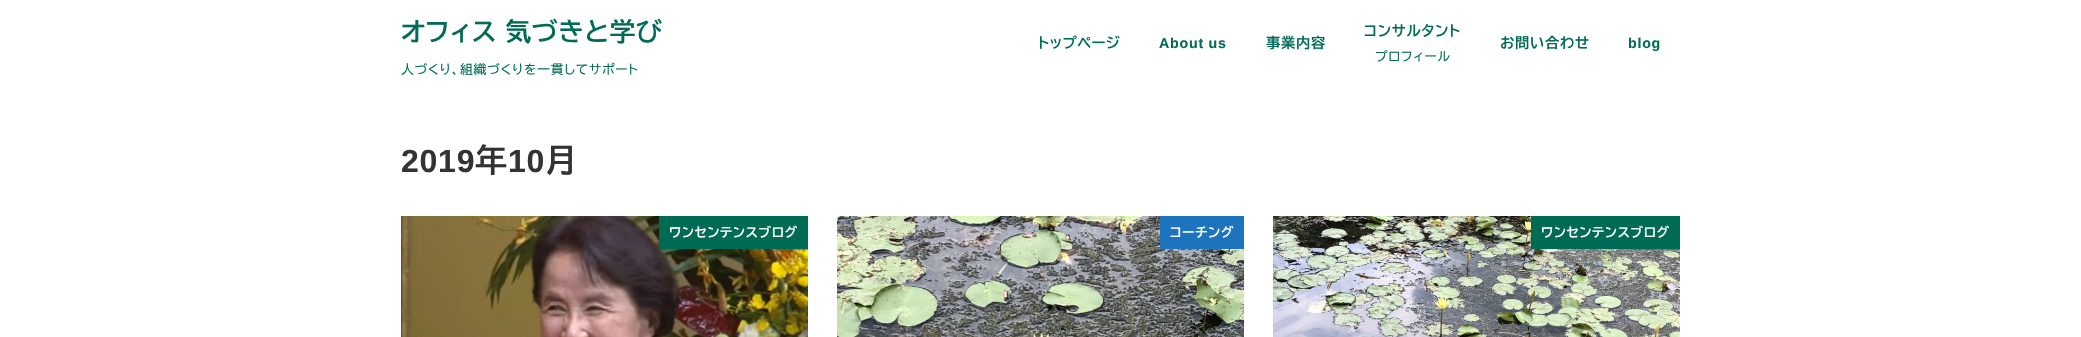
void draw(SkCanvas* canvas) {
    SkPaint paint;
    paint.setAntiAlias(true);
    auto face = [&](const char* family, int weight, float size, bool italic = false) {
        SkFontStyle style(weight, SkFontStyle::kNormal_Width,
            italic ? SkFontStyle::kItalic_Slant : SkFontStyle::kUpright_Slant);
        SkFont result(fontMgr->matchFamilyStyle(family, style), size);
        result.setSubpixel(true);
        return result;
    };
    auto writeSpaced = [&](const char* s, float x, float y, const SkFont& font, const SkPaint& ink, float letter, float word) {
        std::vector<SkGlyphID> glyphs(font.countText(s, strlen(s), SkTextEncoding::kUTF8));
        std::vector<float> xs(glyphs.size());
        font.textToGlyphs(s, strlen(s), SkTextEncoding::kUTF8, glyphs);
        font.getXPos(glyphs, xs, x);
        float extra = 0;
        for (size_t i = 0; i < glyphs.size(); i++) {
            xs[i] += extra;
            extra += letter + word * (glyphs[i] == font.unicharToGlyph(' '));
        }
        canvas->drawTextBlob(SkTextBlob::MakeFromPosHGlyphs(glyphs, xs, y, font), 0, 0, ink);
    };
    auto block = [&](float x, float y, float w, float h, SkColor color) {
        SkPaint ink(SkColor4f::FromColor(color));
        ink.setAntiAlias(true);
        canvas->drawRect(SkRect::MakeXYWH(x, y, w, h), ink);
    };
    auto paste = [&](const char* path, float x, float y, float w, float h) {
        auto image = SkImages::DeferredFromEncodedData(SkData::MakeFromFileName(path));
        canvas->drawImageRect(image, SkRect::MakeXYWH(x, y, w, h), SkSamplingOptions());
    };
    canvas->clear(SK_ColorWHITE);
    auto kFont1 = face("BIZ UDPGothic", 700, 25.6f);
    paint.setColor(SkColorSetRGB(0, 107, 86));
    writeSpaced("オフィス 気づきと学び", 401, 41, kFont1, paint, 0.75f, -1);
    auto kFont2 = face("BIZ UDPGothic", 400, 12.75f);
    writeSpaced("人づくり、組織づくりを一貫してサポート", 401, 74, kFont2, paint, 0.75f, 0);
    auto kFont3 = face("BIZ UDPGothic", 700, 14.25f);
    writeSpaced("トップページ", 1038, 48, kFont3, paint, 0.75f, 0);
    auto kFont4 = face("Liberation Sans", 700, 14.25f);
    writeSpaced("About us", 1159, 48, kFont4, paint, 0.75f, 0);
    writeSpaced("事業内容", 1266, 48, kFont3, paint, 0.75f, 0);
    writeSpaced("コンサルタント", 1364, 36, kFont3, paint, 0.75f, 0);
    writeSpaced("プロフィール", 1375, 61, kFont2, paint, 0.75f, 0);
    writeSpaced("お問い合わせ", 1500, 48, kFont3, paint, 0.75f, 0);
    writeSpaced("blog", 1628, 48, kFont4, paint, 0.75f, 0);
    auto kFont5 = face("Liberation Sans", 700, 32);
    paint.setColor(SkColorSetRGB(51, 51, 51));
    writeSpaced("2019", 401, 172, kFont5, paint, 0.75f, 0);
    auto kFont6 = face("BIZ UDPGothic", 700, 32);
    writeSpaced("年", 475, 172, kFont6, paint, 0.75f, 0);
    writeSpaced("10", 508, 172, kFont5, paint, 0.75f, 0);
    writeSpaced("月", 545, 172, kFont6, paint, 0.75f, 0);
    paste("pic1.png", 401, 216, 407, 121);
    block(659, 216, 149, 33, SkColorSetRGB(0, 107, 84));
    auto kFont7 = face("BIZ UDPGothic", 700, 12.75f);
    paint.setColor(SK_ColorWHITE);
    writeSpaced("ワンセンテンスブログ", 669, 237, kFont7, paint, 0.75f, 0);
    paste("pic2.png", 837, 216, 407, 121);
    block(1160, 216, 84, 33, SkColorSetRGB(30, 115, 190));
    writeSpaced("コーチング", 1170, 237, kFont7, paint, 0.75f, 0);
    paste("pic3.png", 1273, 216, 407, 121);
    block(1531, 216, 149, 33, SkColorSetRGB(0, 107, 84));
    writeSpaced("ワンセンテンスブログ", 1541, 237, kFont7, paint, 0.75f, 0);
}
